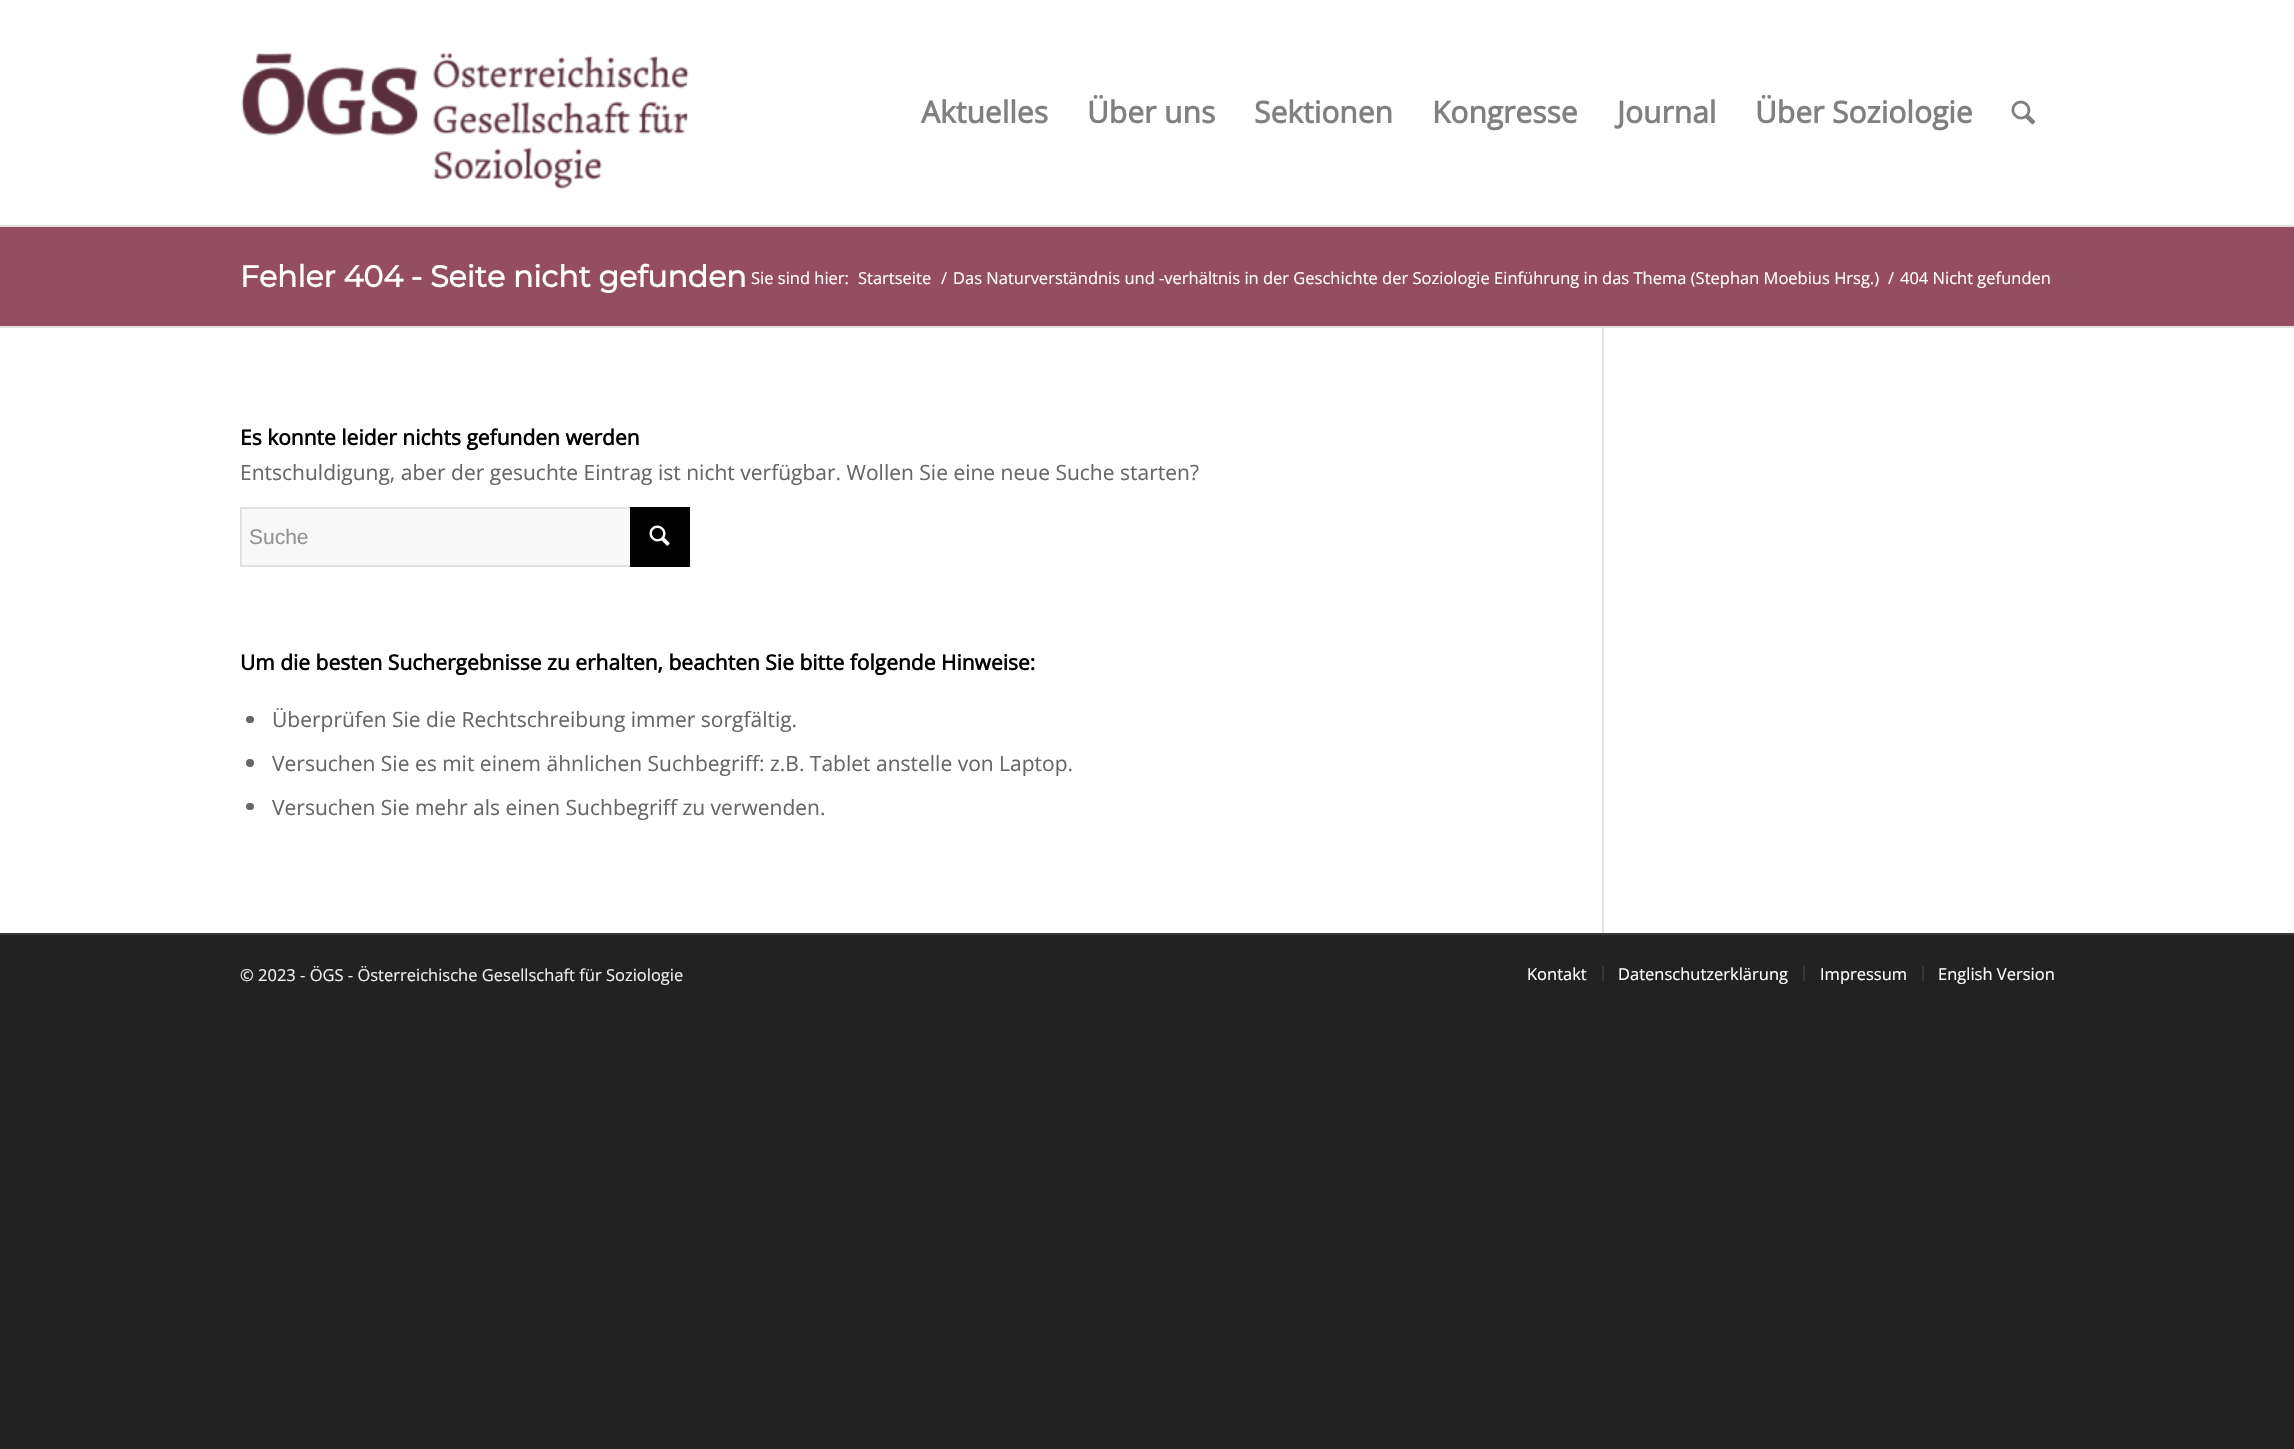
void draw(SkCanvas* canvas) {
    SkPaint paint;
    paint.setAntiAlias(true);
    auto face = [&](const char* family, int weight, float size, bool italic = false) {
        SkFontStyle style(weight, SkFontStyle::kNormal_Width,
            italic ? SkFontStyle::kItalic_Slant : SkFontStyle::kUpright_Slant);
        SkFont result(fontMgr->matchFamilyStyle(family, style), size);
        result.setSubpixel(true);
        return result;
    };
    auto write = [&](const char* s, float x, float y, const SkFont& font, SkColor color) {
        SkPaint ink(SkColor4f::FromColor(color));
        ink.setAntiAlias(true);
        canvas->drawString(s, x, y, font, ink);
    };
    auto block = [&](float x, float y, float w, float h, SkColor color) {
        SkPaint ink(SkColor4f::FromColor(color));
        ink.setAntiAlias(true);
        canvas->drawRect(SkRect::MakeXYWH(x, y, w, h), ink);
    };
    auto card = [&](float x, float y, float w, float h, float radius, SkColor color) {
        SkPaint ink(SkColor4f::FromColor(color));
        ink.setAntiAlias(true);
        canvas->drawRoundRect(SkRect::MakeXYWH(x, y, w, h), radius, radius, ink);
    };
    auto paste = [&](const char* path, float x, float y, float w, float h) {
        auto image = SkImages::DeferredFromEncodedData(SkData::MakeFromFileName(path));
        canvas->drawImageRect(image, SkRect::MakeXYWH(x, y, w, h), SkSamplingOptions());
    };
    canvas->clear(SkColorSetRGB(34, 34, 34));
    block(0, 328, 2294, 605, SK_ColorWHITE);
    block(0, 0, 2294, 225, SK_ColorWHITE);
    block(0, 225, 2294, 2, SkColorSetRGB(225, 225, 225));
    paste("pic1.png", 241, 52, 448, 137);
    auto kFont1 = face("Open Sans", 700, 30);
    write("Aktuelles", 921, 123, kFont1, SkColorSetRGB(128, 128, 128));
    write("Über uns", 1087, 123, kFont1, SkColorSetRGB(128, 128, 128));
    write("Sektionen", 1254, 123, kFont1, SkColorSetRGB(128, 128, 128));
    write("Kongresse", 1432, 123, kFont1, SkColorSetRGB(128, 128, 128));
    write("Journal", 1617, 123, kFont1, SkColorSetRGB(128, 128, 128));
    write("Über Soziologie", 1755, 123, kFont1, SkColorSetRGB(128, 128, 128));
    paste("pic2.png", 2011, 100, 25, 25);
    block(0, 227, 2294, 99, SkColorSetRGB(149, 77, 97));
    auto kFont2 = face("Montserrat", 700, 30);
    write("Fehler 404 - Seite nicht gefunden", 240, 287, kFont2, SK_ColorWHITE);
    auto kFont3 = face("Open Sans", 400, 16.5f);
    write("Sie sind hier:", 751, 284, kFont3, SK_ColorWHITE);
    write("Startseite", 858, 284, kFont3, SK_ColorWHITE);
    write("/", 941, 284, kFont3, SK_ColorWHITE);
    write("Das Naturverständnis und -verhältnis in der Geschichte der Soziologie Einführung in das Thema (Stephan Moebius Hrsg.)", 953, 284, kFont3, SK_ColorWHITE);
    write("/", 1888, 284, kFont3, SK_ColorWHITE);
    write("404 Nicht gefunden", 1900, 284, kFont3, SK_ColorWHITE);
    block(0, 326, 2294, 2, SkColorSetRGB(225, 225, 225));
    block(1602, 327, 2, 606, SkColorSetRGB(225, 225, 225));
    auto kFont4 = face("Open Sans", 700, 21);
    write("Es konnte leider nichts gefunden werden", 240, 445, kFont4, SK_ColorBLACK);
    auto kFont5 = face("Open Sans", 400, 21);
    write("Entschuldigung, aber der gesuchte Eintrag ist nicht verfügbar. Wollen Sie eine neue Suche starten?", 240, 480, kFont5, SkColorSetRGB(102, 102, 102));
    block(242, 509, 388, 56, SkColorSetRGB(248, 248, 248));
    paint.setStyle(SkPaint::kStroke_Style);
    paint.setStrokeWidth(2);
    paint.setColor(SkColorSetRGB(225, 225, 225));
    canvas->drawRect(SkRect::MakeXYWH(241, 508, 448, 58), paint);
    auto kFont6 = face("Liberation Sans", 400, 21);
    write("Suche", 249, 544, kFont6, SkColorSetRGB(145, 145, 145));
    block(630, 507, 60, 60, SK_ColorBLACK);
    paste("pic3.png", 649, 525, 21, 21);
    write("Um die besten Suchergebnisse zu erhalten, beachten Sie bitte folgende Hinweise:", 240, 670, kFont4, SK_ColorBLACK);
    card(246, 716, 8, 7, 3.5f, SkColorSetRGB(102, 102, 102));
    write("Überprüfen Sie die Rechtschreibung immer sorgfältig.", 272, 727, kFont5, SkColorSetRGB(102, 102, 102));
    paint.setStyle(SkPaint::kFill_Style);
    paint.setColor(SkColorSetRGB(102, 102, 102));
    canvas->drawCircle(250, 763, 4, paint);
    write("Versuchen Sie es mit einem ähnlichen Suchbegriff: z.B. Tablet anstelle von Laptop.", 272, 771, kFont5, SkColorSetRGB(102, 102, 102));
    card(246, 803, 8, 7, 3.5f, SkColorSetRGB(102, 102, 102));
    write("Versuchen Sie mehr als einen Suchbegriff zu verwenden.", 272, 815, kFont5, SkColorSetRGB(102, 102, 102));
    block(0, 933, 2294, 2, SkColorSetRGB(55, 55, 55));
    write("© 2023 - ÖGS - Österreichische Gesellschaft für Soziologie", 240, 981, kFont3, SkColorSetRGB(238, 238, 238));
    write("Kontakt", 1527, 980, kFont3, SK_ColorWHITE);
    block(1602, 966, 2, 15, SkColorSetRGB(55, 55, 55));
    write("Datenschutzerklärung", 1618, 980, kFont3, SK_ColorWHITE);
    block(1803, 966, 2, 15, SkColorSetRGB(55, 55, 55));
    write("Impressum", 1820, 980, kFont3, SK_ColorWHITE);
    block(1922, 966, 2, 15, SkColorSetRGB(55, 55, 55));
    write("English Version", 1938, 980, kFont3, SK_ColorWHITE);
}
